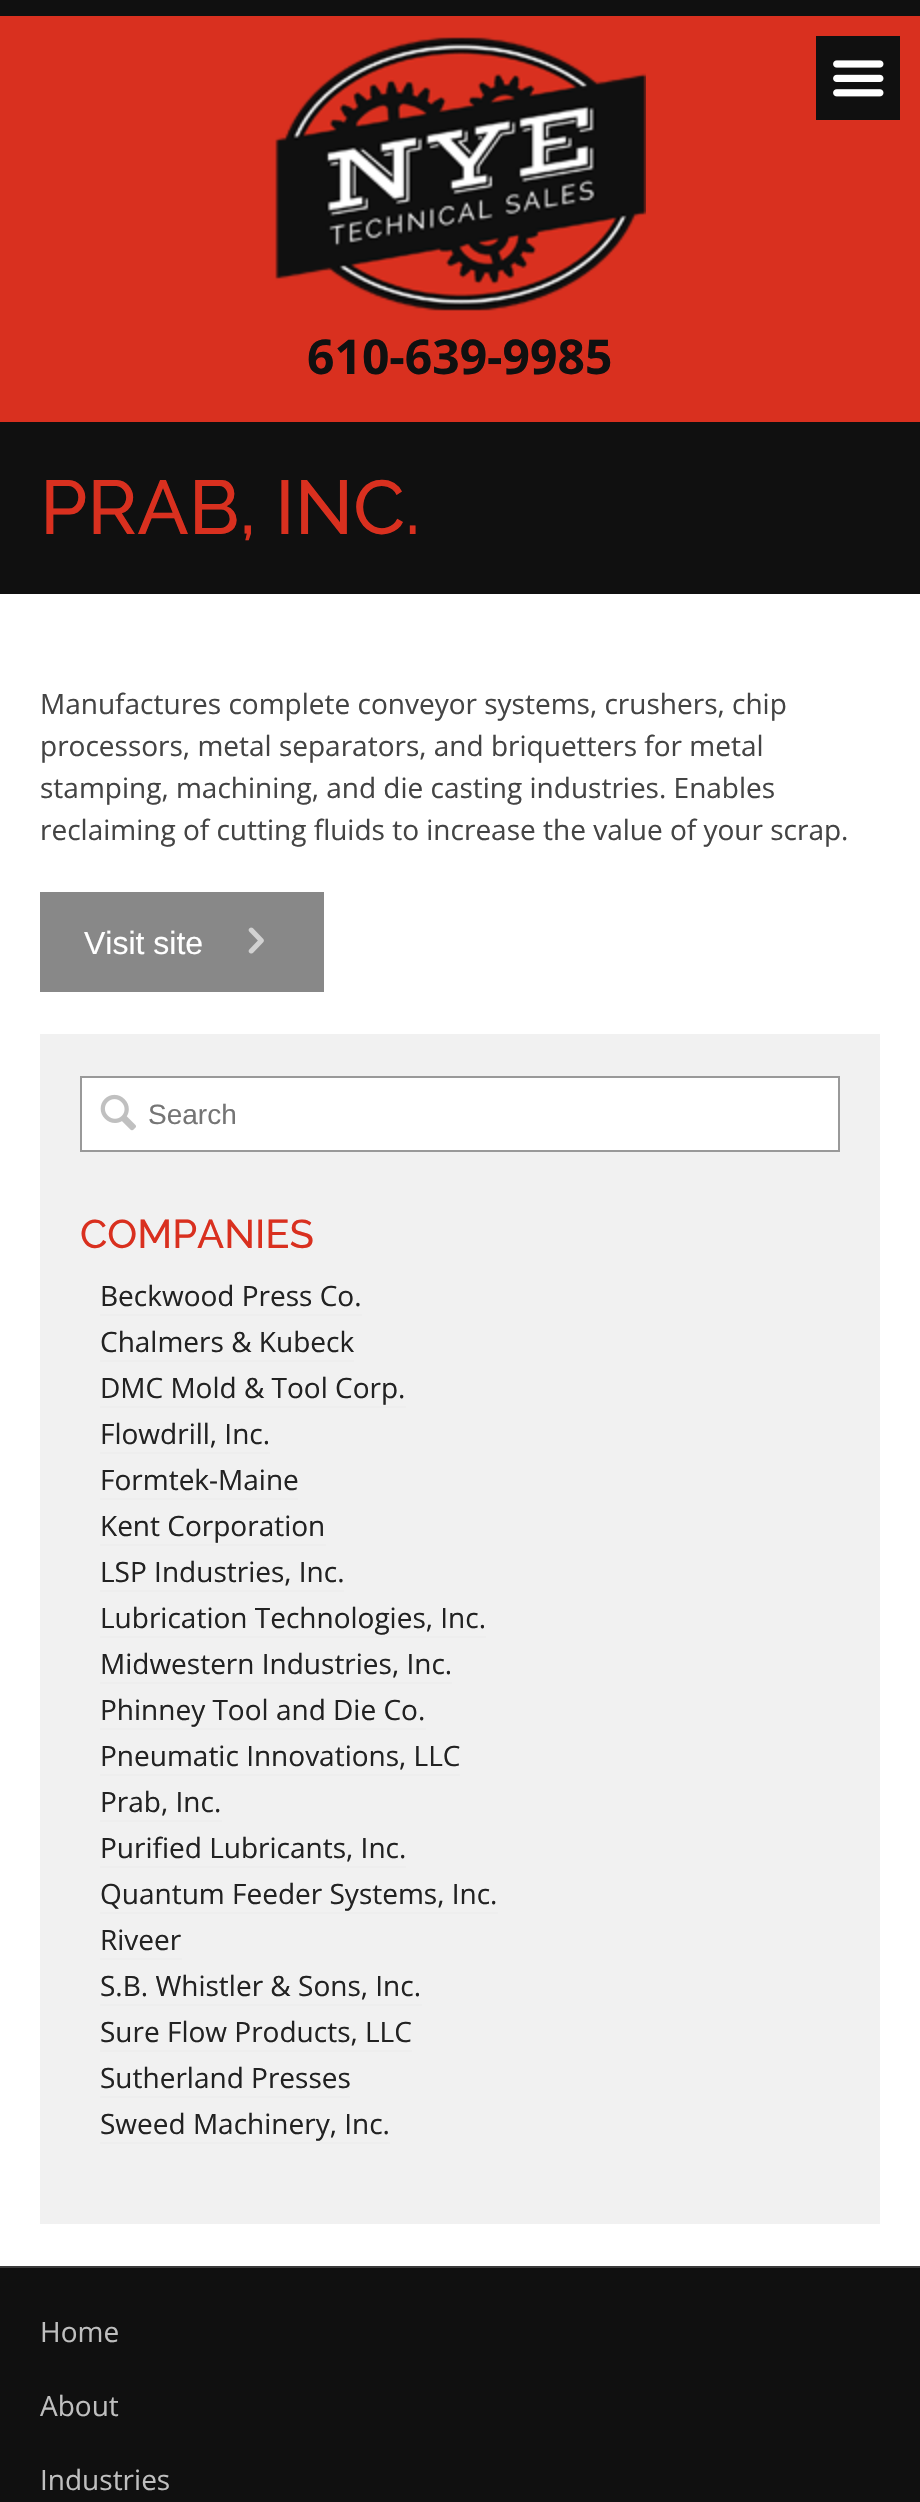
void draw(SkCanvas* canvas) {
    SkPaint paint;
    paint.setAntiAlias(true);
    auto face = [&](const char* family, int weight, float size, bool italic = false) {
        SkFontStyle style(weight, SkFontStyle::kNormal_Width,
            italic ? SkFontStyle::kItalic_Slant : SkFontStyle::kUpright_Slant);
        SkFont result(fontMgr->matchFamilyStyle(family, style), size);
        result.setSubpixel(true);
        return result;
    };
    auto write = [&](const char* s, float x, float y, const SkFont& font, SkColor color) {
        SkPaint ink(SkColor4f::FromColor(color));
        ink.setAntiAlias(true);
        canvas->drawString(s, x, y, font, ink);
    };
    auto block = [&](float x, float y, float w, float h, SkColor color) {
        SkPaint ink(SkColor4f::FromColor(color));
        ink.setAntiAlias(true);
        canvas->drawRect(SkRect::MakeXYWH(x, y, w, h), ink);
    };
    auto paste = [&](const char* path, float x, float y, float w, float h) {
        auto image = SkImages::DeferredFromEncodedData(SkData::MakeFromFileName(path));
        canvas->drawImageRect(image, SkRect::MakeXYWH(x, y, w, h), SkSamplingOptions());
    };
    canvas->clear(SkColorSetRGB(16, 16, 16));
    block(0, 16, 920, 406, SkColorSetRGB(217, 48, 31));
    block(816, 36, 84, 84, SkColorSetRGB(16, 16, 16));
    paste("pic1.png", 833, 60, 51, 37);
    paste("pic2.png", 275, 37, 371, 274);
    auto kFont1 = face("Open Sans", 700, 48);
    write("610-639-9985", 307, 374, kFont1, SkColorSetRGB(16, 16, 16));
    block(0, 594, 920, 1672, SK_ColorWHITE);
    auto kFont2 = face("Raleway", 500, 76);
    write("PRAB, INC.", 40, 534, kFont2, SkColorSetRGB(217, 48, 31));
    auto kFont3 = face("Open Sans", 400, 28);
    write("Manufactures complete conveyor systems, crushers, chip", 40, 714, kFont3, SkColorSetRGB(68, 68, 68));
    write("processors, metal separators, and briquetters for metal", 40, 756, kFont3, SkColorSetRGB(68, 68, 68));
    write("stamping, machining, and die casting industries. Enables", 40, 798, kFont3, SkColorSetRGB(68, 68, 68));
    write("reclaiming of cutting fluids to increase the value of your scrap.", 40, 840, kFont3, SkColorSetRGB(68, 68, 68));
    block(40, 892, 284, 100, SkColorSetRGB(136, 136, 136));
    auto kFont4 = face("Liberation Sans", 400, 32);
    write("Visit site", 84, 954, kFont4, SK_ColorWHITE);
    paste("pic3.png", 248, 927, 16, 27);
    block(40, 1034, 840, 1190, SkColorSetRGB(241, 241, 241));
    paint.setColor(SK_ColorWHITE);
    canvas->drawRect(SkRect::MakeXYWH(81, 1077, 758, 74), paint);
    paint.setStyle(SkPaint::kStroke_Style);
    paint.setStrokeWidth(2);
    paint.setColor(SkColorSetRGB(153, 153, 153));
    canvas->drawRect(SkRect::MakeXYWH(81, 1077, 758, 74), paint);
    paste("pic4.png", 100, 1094, 36, 37);
    auto kFont5 = face("Liberation Sans", 400, 28);
    write("Search", 148, 1124, kFont5, SkColorSetRGB(117, 117, 117));
    auto kFont6 = face("Raleway", 500, 40);
    write("COMPANIES", 80, 1248, kFont6, SkColorSetRGB(217, 48, 31));
    write("Beckwood Press Co.", 100, 1306, kFont3, SkColorSetRGB(34, 34, 34));
    block(100, 1314, 262, 2, SkColorSetRGB(238, 238, 238));
    write("Chalmers & Kubeck", 100, 1352, kFont3, SkColorSetRGB(34, 34, 34));
    block(100, 1360, 254, 2, SkColorSetRGB(238, 238, 238));
    write("DMC Mold & Tool Corp.", 100, 1398, kFont3, SkColorSetRGB(34, 34, 34));
    block(100, 1406, 306, 2, SkColorSetRGB(238, 238, 238));
    write("Flowdrill, Inc.", 100, 1444, kFont3, SkColorSetRGB(34, 34, 34));
    block(100, 1452, 170, 2, SkColorSetRGB(238, 238, 238));
    write("Formtek-Maine", 100, 1490, kFont3, SkColorSetRGB(34, 34, 34));
    block(100, 1498, 198, 2, SkColorSetRGB(238, 238, 238));
    write("Kent Corporation", 100, 1536, kFont3, SkColorSetRGB(34, 34, 34));
    block(100, 1544, 226, 2, SkColorSetRGB(238, 238, 238));
    write("LSP Industries, Inc.", 100, 1582, kFont3, SkColorSetRGB(34, 34, 34));
    block(100, 1590, 244, 2, SkColorSetRGB(238, 238, 238));
    write("Lubrication Technologies, Inc.", 100, 1628, kFont3, SkColorSetRGB(34, 34, 34));
    block(100, 1636, 386, 2, SkColorSetRGB(238, 238, 238));
    write("Midwestern Industries, Inc.", 100, 1674, kFont3, SkColorSetRGB(34, 34, 34));
    block(100, 1682, 352, 2, SkColorSetRGB(238, 238, 238));
    write("Phinney Tool and Die Co.", 100, 1720, kFont3, SkColorSetRGB(34, 34, 34));
    block(100, 1728, 326, 2, SkColorSetRGB(238, 238, 238));
    write("Pneumatic Innovations, LLC", 100, 1766, kFont3, SkColorSetRGB(34, 34, 34));
    block(100, 1774, 360, 2, SkColorSetRGB(238, 238, 238));
    write("Prab, Inc.", 100, 1812, kFont3, SkColorSetRGB(34, 34, 34));
    block(100, 1820, 122, 2, SkColorSetRGB(238, 238, 238));
    write("Purified Lubricants, Inc.", 100, 1858, kFont3, SkColorSetRGB(34, 34, 34));
    block(100, 1866, 306, 2, SkColorSetRGB(238, 238, 238));
    write("Quantum Feeder Systems, Inc.", 100, 1904, kFont3, SkColorSetRGB(34, 34, 34));
    block(100, 1912, 398, 2, SkColorSetRGB(238, 238, 238));
    write("Riveer", 100, 1950, kFont3, SkColorSetRGB(34, 34, 34));
    block(100, 1958, 82, 2, SkColorSetRGB(238, 238, 238));
    write("S.B. Whistler & Sons, Inc.", 100, 1996, kFont3, SkColorSetRGB(34, 34, 34));
    block(100, 2004, 322, 2, SkColorSetRGB(238, 238, 238));
    write("Sure Flow Products, LLC", 100, 2042, kFont3, SkColorSetRGB(34, 34, 34));
    block(100, 2050, 312, 2, SkColorSetRGB(238, 238, 238));
    write("Sutherland Presses", 100, 2088, kFont3, SkColorSetRGB(34, 34, 34));
    block(100, 2096, 250, 2, SkColorSetRGB(238, 238, 238));
    write("Sweed Machinery, Inc.", 100, 2134, kFont3, SkColorSetRGB(34, 34, 34));
    block(100, 2142, 290, 2, SkColorSetRGB(238, 238, 238));
    block(0, 2266, 920, 2, SkColorSetRGB(59, 59, 59));
    write("Home", 40, 2342, kFont3, SkColorSetRGB(191, 191, 191));
    write("About", 40, 2416, kFont3, SkColorSetRGB(191, 191, 191));
    write("Industries", 40, 2490, kFont3, SkColorSetRGB(191, 191, 191));
}
